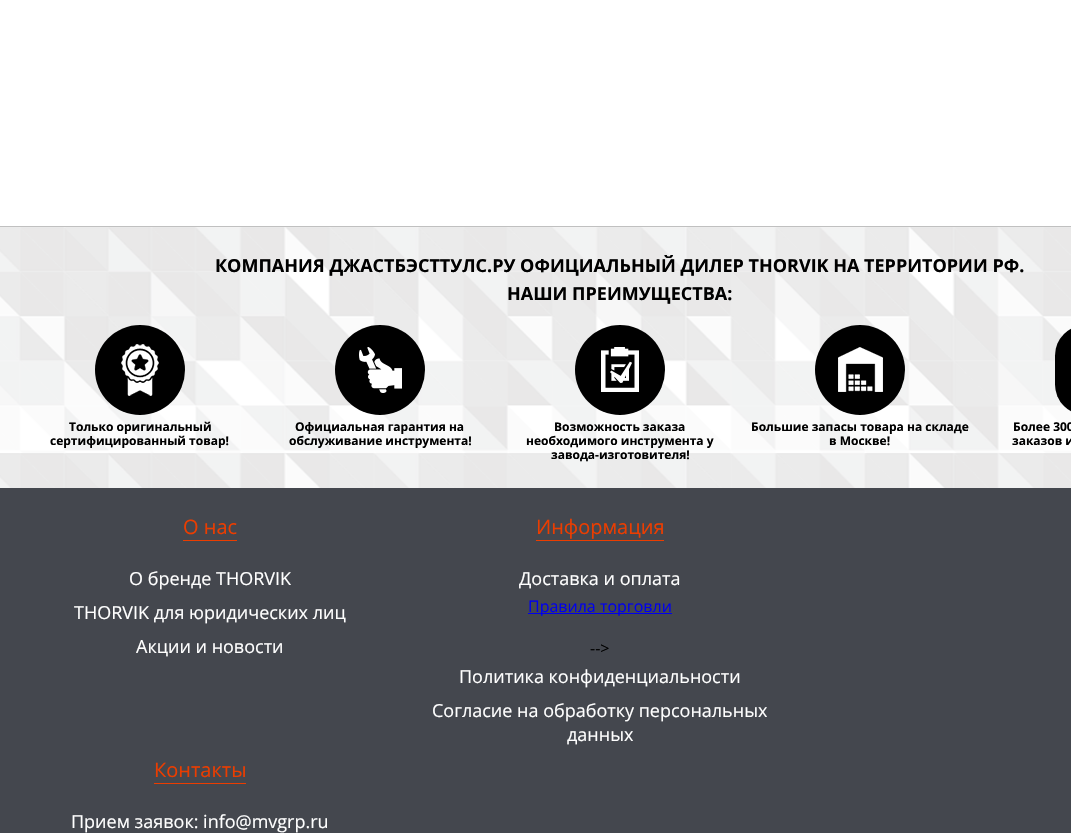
void draw(SkCanvas* canvas) {
    SkPaint paint;
    paint.setAntiAlias(true);
    auto face = [&](const char* family, int weight, float size, bool italic = false) {
        SkFontStyle style(weight, SkFontStyle::kNormal_Width,
            italic ? SkFontStyle::kItalic_Slant : SkFontStyle::kUpright_Slant);
        SkFont result(fontMgr->matchFamilyStyle(family, style), size);
        result.setSubpixel(true);
        return result;
    };
    auto write = [&](const char* s, float x, float y, const SkFont& font, SkColor color) {
        SkPaint ink(SkColor4f::FromColor(color));
        ink.setAntiAlias(true);
        canvas->drawString(s, x, y, font, ink);
    };
    auto block = [&](float x, float y, float w, float h, SkColor color) {
        SkPaint ink(SkColor4f::FromColor(color));
        ink.setAntiAlias(true);
        canvas->drawRect(SkRect::MakeXYWH(x, y, w, h), ink);
    };
    auto card = [&](float x, float y, float w, float h, float radius, SkColor color) {
        SkPaint ink(SkColor4f::FromColor(color));
        ink.setAntiAlias(true);
        canvas->drawRoundRect(SkRect::MakeXYWH(x, y, w, h), radius, radius, ink);
    };
    auto paste = [&](const char* path, float x, float y, float w, float h) {
        auto image = SkImages::DeferredFromEncodedData(SkData::MakeFromFileName(path));
        canvas->drawImageRect(image, SkRect::MakeXYWH(x, y, w, h), SkSamplingOptions());
    };
    canvas->clear(SK_ColorWHITE);
    paste("pic1.png", 0, 227, 1071, 261);
    block(0, 226, 1071, 1, SkColorSetRGB(192, 192, 192));
    auto kFont1 = face("Open Sans", 700, 18);
    write("КОМПАНИЯ ДЖАСТБЭСТТУЛС.РУ ОФИЦИАЛЬНЫЙ ДИЛЕР THORVIK НА ТЕРРИТОРИИ РФ.", 215, 272, kFont1, SK_ColorBLACK);
    write("НАШИ ПРЕИМУЩЕСТВА:", 507, 300, kFont1, SK_ColorBLACK);
    paint.setColor(SK_ColorBLACK);
    canvas->drawCircle(140, 370, 45, paint);
    paste("pic2.png", 121, 344, 38, 52);
    auto kFont2 = face("Open Sans", 700, 12);
    write("Только оригинальный", 69, 431, kFont2, SK_ColorBLACK);
    write("сертифицированный товар!", 50, 445, kFont2, SK_ColorBLACK);
    canvas->drawCircle(380, 370, 45, paint);
    paste("pic3.png", 359, 347, 43, 46);
    write("Официальная гарантия на", 295, 431, kFont2, SK_ColorBLACK);
    write("обслуживание инструмента!", 289, 445, kFont2, SK_ColorBLACK);
    canvas->drawCircle(620, 370, 45, paint);
    paste("pic4.png", 601, 347, 38, 45);
    write("Возможность заказа", 554, 431, kFont2, SK_ColorBLACK);
    write("необходимого инструмента у", 526, 445, kFont2, SK_ColorBLACK);
    write("завода-изготовителя!", 551, 459, kFont2, SK_ColorBLACK);
    canvas->drawCircle(860, 370, 45, paint);
    paste("pic5.png", 838, 347, 45, 45);
    write("Большие запасы товара на складе", 751, 431, kFont2, SK_ColorBLACK);
    write("в Москве!", 829, 445, kFont2, SK_ColorBLACK);
    card(1055, 325, 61, 90, 45, SK_ColorBLACK);
    write("Более 300", 1013, 431, kFont2, SK_ColorBLACK);
    write("заказов и", 1012, 445, kFont2, SK_ColorBLACK);
    block(0, 488, 1071, 345, SkColorSetRGB(68, 71, 78));
    block(183, 540, 54, 1, SkColorSetRGB(235, 61, 0));
    auto kFont3 = face("Open Sans", 400, 20);
    write("О нас", 183, 534, kFont3, SkColorSetRGB(235, 61, 0));
    auto kFont4 = face("Open Sans", 400, 18);
    write("О бренде THORVIK", 129, 585, kFont4, SK_ColorWHITE);
    write("THORVIK для юридических лиц", 74, 619, kFont4, SK_ColorWHITE);
    write("Акции и новости", 136, 653, kFont4, SK_ColorWHITE);
    block(536, 540, 128, 1, SkColorSetRGB(235, 61, 0));
    write("Информация", 536, 534, kFont3, SkColorSetRGB(235, 61, 0));
    write("Доставка и оплата", 519, 585, kFont4, SK_ColorWHITE);
    block(528, 613, 144, 1, SkColorSetRGB(0, 0, 238));
    auto kFont5 = face("Open Sans", 400, 16);
    write("Правила торговли", 528, 612, kFont5, SkColorSetRGB(0, 0, 238));
    write("-->", 590, 654, kFont5, SK_ColorBLACK);
    write("Политика конфиденциальности", 459, 683, kFont4, SK_ColorWHITE);
    write("Согласие на обработку персональных", 432, 717, kFont4, SK_ColorWHITE);
    write("данных", 567, 741, kFont4, SK_ColorWHITE);
    block(154, 783, 92, 1, SkColorSetRGB(235, 61, 0));
    write("Контакты", 154, 777, kFont3, SkColorSetRGB(235, 61, 0));
    write("Прием заявок: info@mvgrp.ru", 71, 828, kFont4, SK_ColorWHITE);
}
